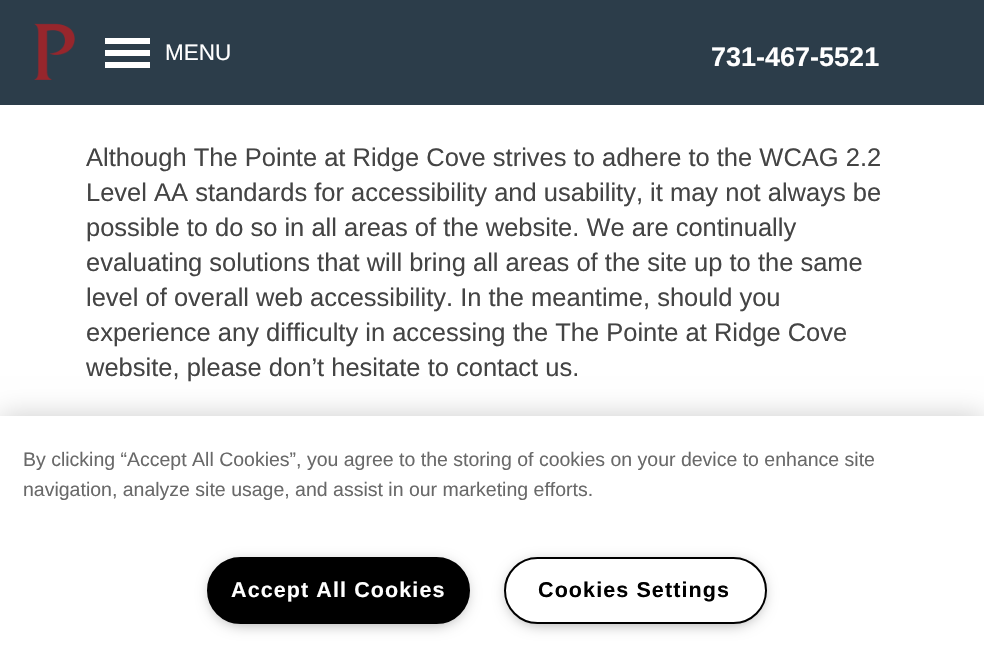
void draw(SkCanvas* canvas) {
    SkPaint paint;
    paint.setAntiAlias(true);
    auto face = [&](const char* family, int weight, float size, bool italic = false) {
        SkFontStyle style(weight, SkFontStyle::kNormal_Width,
            italic ? SkFontStyle::kItalic_Slant : SkFontStyle::kUpright_Slant);
        SkFont result(fontMgr->matchFamilyStyle(family, style), size);
        result.setSubpixel(true);
        return result;
    };
    auto write = [&](const char* s, float x, float y, const SkFont& font, SkColor color) {
        SkPaint ink(SkColor4f::FromColor(color));
        ink.setAntiAlias(true);
        canvas->drawString(s, x, y, font, ink);
    };
    auto writeSpaced = [&](const char* s, float x, float y, const SkFont& font, const SkPaint& ink, float letter, float word) {
        std::vector<SkGlyphID> glyphs(font.countText(s, strlen(s), SkTextEncoding::kUTF8));
        std::vector<float> xs(glyphs.size());
        font.textToGlyphs(s, strlen(s), SkTextEncoding::kUTF8, glyphs);
        font.getXPos(glyphs, xs, x);
        float extra = 0;
        for (size_t i = 0; i < glyphs.size(); i++) {
            xs[i] += extra;
            extra += letter + word * (glyphs[i] == font.unicharToGlyph(' '));
        }
        canvas->drawTextBlob(SkTextBlob::MakeFromPosHGlyphs(glyphs, xs, y, font), 0, 0, ink);
    };
    auto block = [&](float x, float y, float w, float h, SkColor color) {
        SkPaint ink(SkColor4f::FromColor(color));
        ink.setAntiAlias(true);
        canvas->drawRect(SkRect::MakeXYWH(x, y, w, h), ink);
    };
    auto paste = [&](const char* path, float x, float y, float w, float h) {
        auto image = SkImages::DeferredFromEncodedData(SkData::MakeFromFileName(path));
        canvas->drawImageRect(image, SkRect::MakeXYWH(x, y, w, h), SkSamplingOptions());
    };
    canvas->clear(SK_ColorWHITE);
    block(0, 0, 984, 105, SkColorSetRGB(44, 61, 74));
    paste("pic1.png", 34, 23, 41, 57);
    block(105, 38, 45, 6, SK_ColorWHITE);
    block(105, 50, 45, 6, SK_ColorWHITE);
    block(105, 62, 45, 6, SK_ColorWHITE);
    auto kFont1 = face("Liberation Sans", 400, 22.5f);
    write("MENU", 165, 60, kFont1, SK_ColorWHITE);
    auto kFont2 = face("Liberation Sans", 700, 27);
    write("731-467-5521", 711, 66, kFont2, SK_ColorWHITE);
    auto kFont3 = face("Liberation Sans", 400, 25.5f);
    write("Although The Pointe at Ridge Cove strives to adhere to the WCAG 2.2", 86, 166, kFont3, SkColorSetRGB(68, 68, 68));
    write("Level AA standards for accessibility and usability, it may not always be", 86, 201, kFont3, SkColorSetRGB(68, 68, 68));
    write("possible to do so in all areas of the website. We are continually", 86, 236, kFont3, SkColorSetRGB(68, 68, 68));
    write("evaluating solutions that will bring all areas of the site up to the same", 86, 271, kFont3, SkColorSetRGB(68, 68, 68));
    write("level of overall web accessibility. In the meantime, should you", 86, 306, kFont3, SkColorSetRGB(68, 68, 68));
    write("experience any difficulty in accessing the The Pointe at Ridge Cove", 86, 341, kFont3, SkColorSetRGB(68, 68, 68));
    write("website, please don’t hesitate to contact us.", 86, 376, kFont3, SkColorSetRGB(68, 68, 68));
    paint.setColor(SkColorSetARGB(51, 0, 0, 0));
    paint.setMaskFilter(SkMaskFilter::MakeBlur(kNormal_SkBlurStyle, 13.5f));
    canvas->drawRect(SkRect::MakeXYWH(0, 416, 984, 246), paint);
    paint.setMaskFilter(nullptr);
    block(0, 416, 984, 245, SK_ColorWHITE);
    auto kFont4 = face("Liberation Sans", 400, 19.5f);
    write("By clicking “Accept All Cookies”, you agree to the storing of cookies on your device to enhance site", 23, 466, kFont4, SkColorSetRGB(105, 105, 105));
    write("navigation, analyze site usage, and assist in our marketing efforts.", 23, 496, kFont4, SkColorSetRGB(105, 105, 105));
    paint.setColor(SkColorSetRGB(153, 153, 153));
    paint.setMaskFilter(SkMaskFilter::MakeBlur(kNormal_SkBlurStyle, 7.5f));
    canvas->drawRoundRect(SkRect::MakeXYWH(212, 564, 253, 59), 29.5f, 29.5f, paint);
    paint.setMaskFilter(nullptr);
    paint.setColor(SK_ColorBLACK);
    canvas->drawRoundRect(SkRect::MakeXYWH(208, 558, 261, 65), 32.5f, 32.5f, paint);
    paint.setStyle(SkPaint::kStroke_Style);
    paint.setStrokeWidth(2);
    canvas->drawRoundRect(SkRect::MakeXYWH(208, 558, 261, 65), 32.5f, 32.5f, paint);
    auto kFont5 = face("Liberation Sans", 700, 21.5f);
    paint.setStyle(SkPaint::kFill_Style);
    paint.setColor(SK_ColorWHITE);
    writeSpaced("Accept All Cookies", 231, 597, kFont5, paint, 1.1f, 0);
    paint.setColor(SkColorSetRGB(153, 153, 153));
    paint.setMaskFilter(SkMaskFilter::MakeBlur(kNormal_SkBlurStyle, 7.5f));
    canvas->drawRoundRect(SkRect::MakeXYWH(509, 564, 253, 59), 29.5f, 29.5f, paint);
    paint.setMaskFilter(nullptr);
    paint.setColor(SK_ColorWHITE);
    canvas->drawRoundRect(SkRect::MakeXYWH(505, 558, 261, 65), 32.5f, 32.5f, paint);
    paint.setStyle(SkPaint::kStroke_Style);
    paint.setColor(SK_ColorBLACK);
    canvas->drawRoundRect(SkRect::MakeXYWH(505, 558, 261, 65), 32.5f, 32.5f, paint);
    paint.setStyle(SkPaint::kFill_Style);
    writeSpaced("Cookies Settings", 538, 597, kFont5, paint, 1.1f, 0);
}
